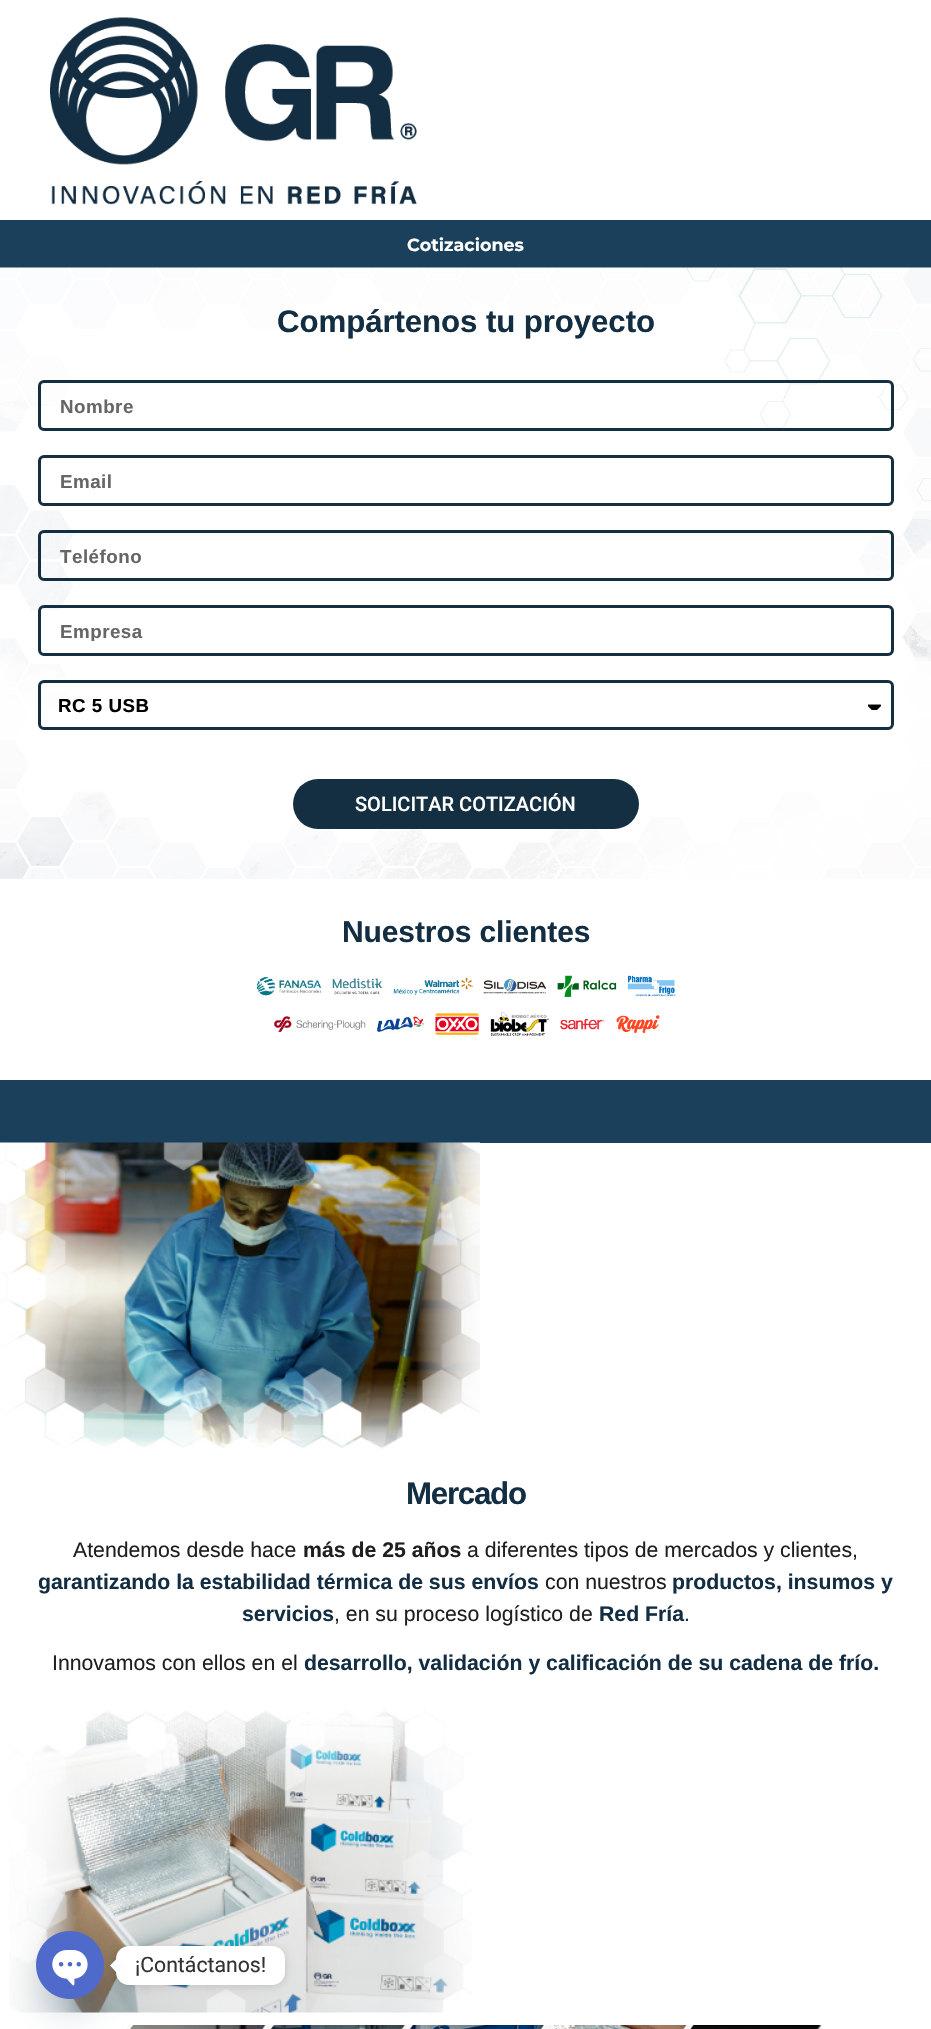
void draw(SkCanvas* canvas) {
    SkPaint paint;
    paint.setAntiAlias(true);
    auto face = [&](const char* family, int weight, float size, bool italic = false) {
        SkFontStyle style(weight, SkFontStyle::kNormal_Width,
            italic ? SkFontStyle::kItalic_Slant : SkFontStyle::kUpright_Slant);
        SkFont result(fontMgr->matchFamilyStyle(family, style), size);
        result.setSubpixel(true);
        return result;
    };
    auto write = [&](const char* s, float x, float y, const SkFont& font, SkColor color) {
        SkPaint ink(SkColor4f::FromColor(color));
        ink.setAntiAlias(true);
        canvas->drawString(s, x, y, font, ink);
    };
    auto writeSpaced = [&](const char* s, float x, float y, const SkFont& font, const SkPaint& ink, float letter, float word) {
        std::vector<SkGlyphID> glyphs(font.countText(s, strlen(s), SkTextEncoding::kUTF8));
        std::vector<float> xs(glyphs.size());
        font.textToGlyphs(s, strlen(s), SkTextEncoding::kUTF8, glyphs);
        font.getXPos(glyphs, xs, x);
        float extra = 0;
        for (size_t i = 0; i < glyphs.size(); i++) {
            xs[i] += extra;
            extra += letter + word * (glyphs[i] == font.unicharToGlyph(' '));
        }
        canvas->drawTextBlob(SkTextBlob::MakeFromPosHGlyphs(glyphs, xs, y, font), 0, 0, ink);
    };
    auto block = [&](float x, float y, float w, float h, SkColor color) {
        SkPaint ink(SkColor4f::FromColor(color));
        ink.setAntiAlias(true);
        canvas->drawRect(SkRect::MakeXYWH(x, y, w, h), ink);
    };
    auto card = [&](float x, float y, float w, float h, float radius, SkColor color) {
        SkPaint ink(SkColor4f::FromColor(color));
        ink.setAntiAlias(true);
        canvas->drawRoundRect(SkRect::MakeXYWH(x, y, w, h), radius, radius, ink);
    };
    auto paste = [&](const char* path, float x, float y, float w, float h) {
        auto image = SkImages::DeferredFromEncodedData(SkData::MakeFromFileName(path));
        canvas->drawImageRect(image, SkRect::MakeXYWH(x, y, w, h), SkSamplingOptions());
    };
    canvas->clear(SK_ColorWHITE);
    paste("pic1.png", 50, 17, 367, 188);
    block(0, 220, 931, 48, SkColorSetRGB(26, 64, 92));
    auto kFont1 = face("Montserrat", 700, 17.5f);
    write("Cotizaciones", 407, 251, kFont1, SK_ColorWHITE);
    paste("pic2.png", 0, 267, 931, 612);
    auto kFont2 = face("Liberation Sans", 700, 31.25f);
    paint.setColor(SkColorSetRGB(19, 46, 66));
    writeSpaced("Compártenos tu proyecto", 277, 332, kFont2, paint, -0.1f, 0);
    paint.setColor(SkColorSetARGB(41, 255, 255, 255));
    canvas->drawRoundRect(SkRect::MakeXYWH(39.5f, 381.5f, 853, 48), 4.5f, 4.5f, paint);
    paint.setStyle(SkPaint::kStroke_Style);
    paint.setStrokeWidth(3);
    paint.setColor(SkColorSetRGB(20, 47, 66));
    canvas->drawRoundRect(SkRect::MakeXYWH(39.5f, 381.5f, 853, 48), 4.5f, 4.5f, paint);
    auto kFont3 = face("Liberation Sans", 700, 18.75f);
    paint.setStyle(SkPaint::kFill_Style);
    paint.setColor(SkColorSetRGB(102, 102, 102));
    writeSpaced("Nombre", 60, 413, kFont3, paint, 0.5f, 0);
    paint.setStyle(SkPaint::kStroke_Style);
    paint.setColor(SkColorSetRGB(20, 47, 66));
    canvas->drawRoundRect(SkRect::MakeXYWH(39.5f, 456.5f, 853, 48), 4.5f, 4.5f, paint);
    paint.setStyle(SkPaint::kFill_Style);
    paint.setColor(SkColorSetRGB(102, 102, 102));
    writeSpaced("Email", 60, 488, kFont3, paint, 0.5f, 0);
    paint.setStyle(SkPaint::kStroke_Style);
    paint.setColor(SkColorSetRGB(20, 47, 66));
    canvas->drawRoundRect(SkRect::MakeXYWH(39.5f, 531.5f, 853, 48), 4.5f, 4.5f, paint);
    paint.setStyle(SkPaint::kFill_Style);
    paint.setColor(SkColorSetRGB(102, 102, 102));
    writeSpaced("Teléfono", 60, 563, kFont3, paint, 0.5f, 0);
    paint.setStyle(SkPaint::kStroke_Style);
    paint.setColor(SkColorSetRGB(20, 47, 66));
    canvas->drawRoundRect(SkRect::MakeXYWH(39.5f, 606.5f, 853, 48), 4.5f, 4.5f, paint);
    canvas->save();
    canvas->clipRect(SkRect::MakeXYWH(60, 620, 811, 21));
    paint.setStyle(SkPaint::kFill_Style);
    paint.setColor(SkColorSetRGB(102, 102, 102));
    writeSpaced("Empresa", 60, 638, kFont3, paint, 0.5f, 0);
    canvas->restore();
    paint.setStyle(SkPaint::kStroke_Style);
    paint.setColor(SkColorSetRGB(20, 47, 66));
    canvas->drawRoundRect(SkRect::MakeXYWH(39.5f, 681.5f, 853, 47), 4.5f, 4.5f, paint);
    paint.setStyle(SkPaint::kFill_Style);
    paint.setColor(SK_ColorBLACK);
    writeSpaced("RC 5 USB", 58, 712, kFont3, paint, 0.5f, 0);
    paste("pic3.png", 868, 704, 13, 6);
    card(293, 779, 346, 50, 25, SkColorSetRGB(20, 47, 66));
    auto kFont4 = face("Roboto", 500, 20);
    write("SOLICITAR COTIZACIÓN", 355, 811, kFont4, SK_ColorWHITE);
    auto kFont5 = face("Liberation Sans", 700, 30);
    paint.setColor(SkColorSetRGB(19, 46, 66));
    writeSpaced("Nuestros clientes", 342, 942, kFont5, paint, -0.1f, 0);
    paste("pic4.png", 257, 975, 419, 22);
    paste("pic5.png", 274, 1012, 386, 24);
    block(0, 1080, 931, 63, SkColorSetRGB(26, 64, 92));
    paste("pic6.png", 0, 1142, 480, 307);
    writeSpaced("Mercado", 406, 1504, kFont2, paint, -1.25f, 0);
    auto kFont6 = face("Liberation Sans", 400, 21.25f);
    write("Atendemos desde hace", 73, 1557, kFont6, SkColorSetRGB(31, 31, 31));
    auto kFont7 = face("Liberation Sans", 700, 21.25f);
    write("más de 25 años", 303, 1557, kFont7, SkColorSetRGB(31, 31, 31));
    write("a diferentes tipos de mercados y clientes,", 467, 1557, kFont6, SkColorSetRGB(31, 31, 31));
    write("garantizando la estabilidad térmica de sus envíos", 38, 1589, kFont7, SkColorSetRGB(19, 46, 66));
    write("con nuestros", 545, 1589, kFont6, SkColorSetRGB(31, 31, 31));
    write("productos, insumos y", 672, 1589, kFont7, SkColorSetRGB(19, 46, 66));
    write("servicios", 242, 1621, kFont7, SkColorSetRGB(19, 46, 66));
    write(", en su proceso logístico de", 334, 1621, kFont6, SkColorSetRGB(31, 31, 31));
    write("Red Fría", 599, 1621, kFont7, SkColorSetRGB(19, 46, 66));
    write(".", 684, 1621, kFont6, SkColorSetRGB(19, 46, 66));
    write("Innovamos con ellos en el", 52, 1670, kFont6, SkColorSetRGB(31, 31, 31));
    write("desarrollo, validación y calificación de su cadena de frío.", 304, 1670, kFont7, SkColorSetRGB(19, 46, 66));
    paste("pic7.png", 9, 1708, 463, 305);
    paste("pic8.png", 127, 2025, 695, 4);
    paint.setColor(SkColorSetARGB(38, 0, 0, 0));
    paint.setMaskFilter(SkMaskFilter::MakeBlur(kNormal_SkBlurStyle, 5));
    canvas->drawRoundRect(SkRect::MakeXYWH(116, 1948, 169, 38), 13, 13, paint);
    paint.setMaskFilter(nullptr);
    card(116, 1946, 169, 39, 13, SK_ColorWHITE);
    paint.setColor(SK_ColorWHITE);
    canvas->drawPath(SkPathBuilder().moveTo(116, 1959.5f).lineTo(116, 1972).lineTo(110, 1965.5f).close().detach(), paint);
    paint.setColor(SkColorSetARGB(41, 73, 104, 126));
    paint.setMaskFilter(SkMaskFilter::MakeBlur(kNormal_SkBlurStyle, 15));
    canvas->drawRoundRect(SkRect::MakeXYWH(36, 1951, 68, 68), 34, 34, paint);
    paint.setMaskFilter(nullptr);
    paste("pic9.png", 36, 1931, 68, 68);
    auto kFont8 = face("Roboto", 400, 21.25f);
    write("¡Contáctanos!", 135, 1972, kFont8, SkColorSetRGB(51, 51, 51));
}
